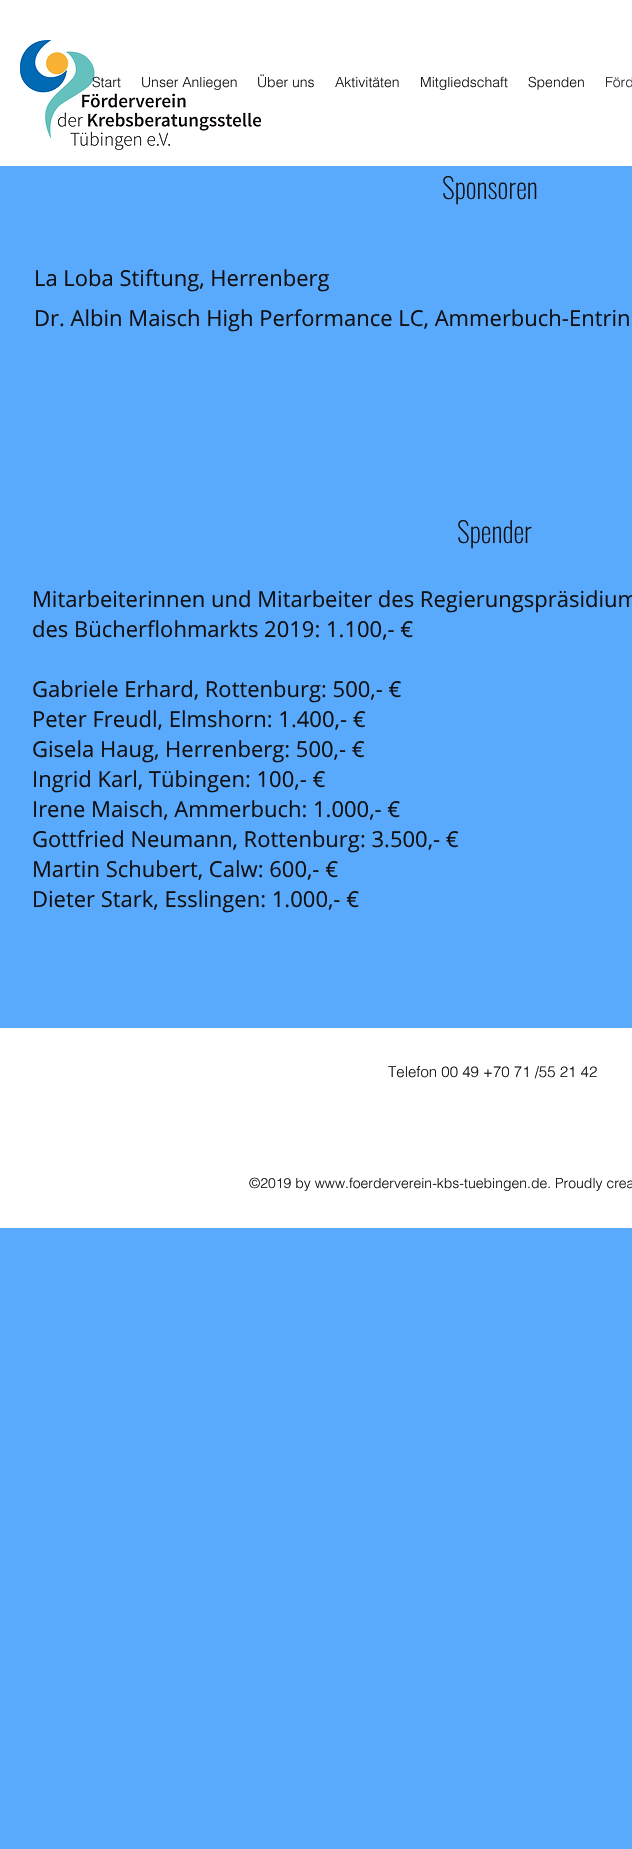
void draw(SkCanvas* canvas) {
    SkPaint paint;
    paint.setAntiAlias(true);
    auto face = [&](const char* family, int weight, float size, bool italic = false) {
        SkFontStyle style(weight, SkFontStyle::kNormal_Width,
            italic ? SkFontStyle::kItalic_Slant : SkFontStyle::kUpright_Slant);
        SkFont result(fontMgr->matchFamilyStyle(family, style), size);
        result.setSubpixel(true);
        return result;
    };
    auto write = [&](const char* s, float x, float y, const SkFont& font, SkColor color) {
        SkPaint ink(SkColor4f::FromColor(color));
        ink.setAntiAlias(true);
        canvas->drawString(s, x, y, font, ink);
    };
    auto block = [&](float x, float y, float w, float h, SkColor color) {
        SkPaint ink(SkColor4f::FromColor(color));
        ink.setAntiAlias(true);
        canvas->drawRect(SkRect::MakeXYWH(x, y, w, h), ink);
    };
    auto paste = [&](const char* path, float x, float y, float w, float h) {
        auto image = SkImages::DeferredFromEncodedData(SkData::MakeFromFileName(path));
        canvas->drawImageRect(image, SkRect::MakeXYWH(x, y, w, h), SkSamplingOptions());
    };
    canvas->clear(SkColorSetRGB(89, 169, 252));
    block(0, 0, 632, 166, SK_ColorWHITE);
    paste("pic1.png", 20, 40, 241, 110);
    auto kFont1 = face("helvetica", 300, 14);
    write("Start", 92, 87, kFont1, SkColorSetRGB(17, 17, 20));
    write("Unser Anliegen", 141, 87, kFont1, SkColorSetRGB(17, 17, 20));
    write("Über uns", 257, 87, kFont1, SkColorSetRGB(17, 17, 20));
    write("Aktivitäten", 335, 87, kFont1, SkColorSetRGB(17, 17, 20));
    write("Mitgliedschaft", 420, 87, kFont1, SkColorSetRGB(17, 17, 20));
    write("Spenden", 528, 87, kFont1, SkColorSetRGB(17, 17, 20));
    write("Förd", 605, 87, kFont1, SkColorSetRGB(40, 40, 48));
    auto kFont2 = face("Oswald", 200, 28);
    write("Sponsoren", 442, 199, kFont2, SkColorSetRGB(17, 17, 20));
    auto kFont3 = face("Open Sans", 400, 22);
    write("La Loba Stiftung, Herrenberg", 34, 286, kFont3, SkColorSetRGB(17, 17, 20));
    write("Dr. Albin Maisch High Performance LC, Ammerbuch-Entrin", 34, 326, kFont3, SkColorSetRGB(17, 17, 20));
    write("Spender", 457, 543, kFont2, SkColorSetRGB(17, 17, 20));
    write("Mitarbeiterinnen und Mitarbeiter des Regierungspräsidium", 32, 607, kFont3, SkColorSetRGB(17, 17, 20));
    write("des Bücherflohmarkts 2019: 1.100,- €", 32, 637, kFont3, SkColorSetRGB(17, 17, 20));
    write("Gabriele Erhard, Rottenburg: 500,- €", 32, 697, kFont3, SkColorSetRGB(17, 17, 20));
    write("Peter Freudl, Elmshorn: 1.400,- €", 32, 727, kFont3, SkColorSetRGB(17, 17, 20));
    write("Gisela Haug, Herrenberg: 500,- €", 32, 757, kFont3, SkColorSetRGB(17, 17, 20));
    write("Ingrid Karl, Tübingen: 100,- €", 32, 787, kFont3, SkColorSetRGB(17, 17, 20));
    write("Irene Maisch, Ammerbuch: 1.000,- €", 32, 817, kFont3, SkColorSetRGB(17, 17, 20));
    write("Gottfried Neumann, Rottenburg: 3.500,- €", 32, 847, kFont3, SkColorSetRGB(17, 17, 20));
    write("Martin Schubert, Calw: 600,- €", 32, 877, kFont3, SkColorSetRGB(17, 17, 20));
    write("Dieter Stark, Esslingen: 1.000,- €", 32, 907, kFont3, SkColorSetRGB(17, 17, 20));
    block(0, 1028, 632, 200, SK_ColorWHITE);
    auto kFont4 = face("helvetica", 300, 15);
    write("Telefon 00 49 +70 71 /55 21 42", 388, 1077, kFont4, SkColorSetRGB(17, 17, 20));
    write("©2019 by www.foerderverein-kbs-tuebingen.de. Proudly crea", 249, 1188, kFont1, SkColorSetRGB(17, 17, 20));
}
